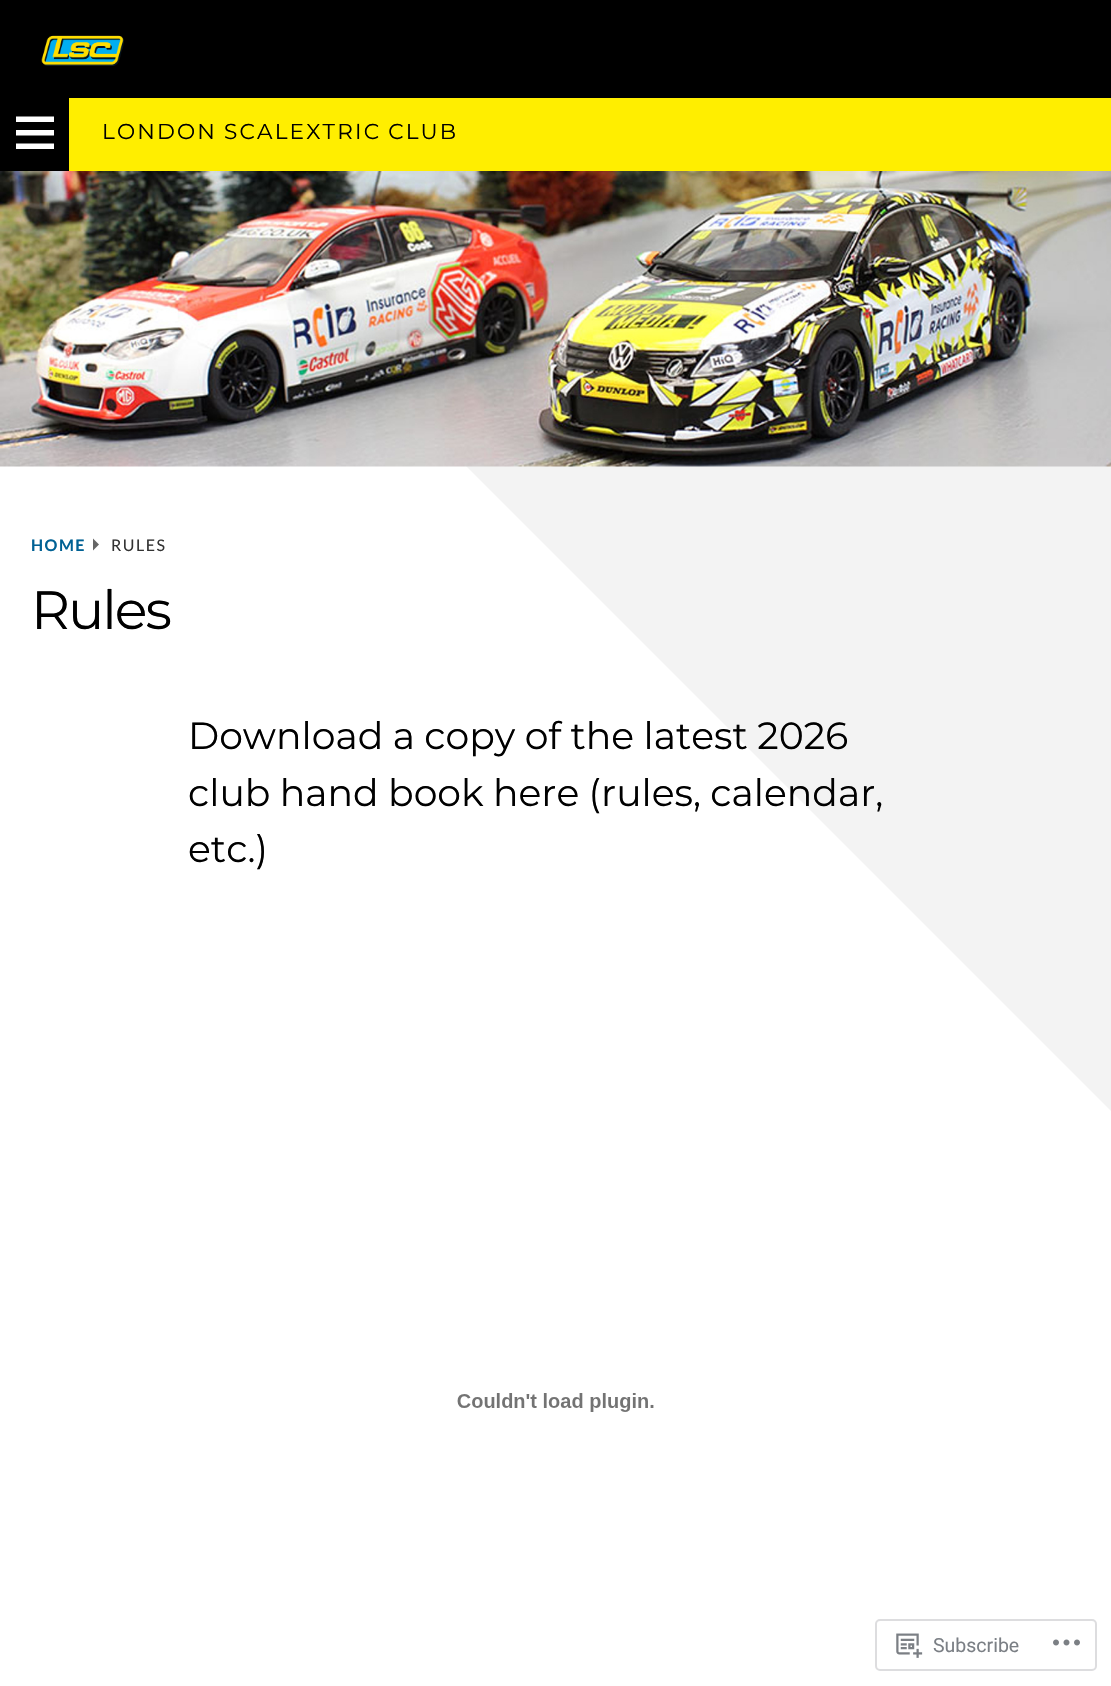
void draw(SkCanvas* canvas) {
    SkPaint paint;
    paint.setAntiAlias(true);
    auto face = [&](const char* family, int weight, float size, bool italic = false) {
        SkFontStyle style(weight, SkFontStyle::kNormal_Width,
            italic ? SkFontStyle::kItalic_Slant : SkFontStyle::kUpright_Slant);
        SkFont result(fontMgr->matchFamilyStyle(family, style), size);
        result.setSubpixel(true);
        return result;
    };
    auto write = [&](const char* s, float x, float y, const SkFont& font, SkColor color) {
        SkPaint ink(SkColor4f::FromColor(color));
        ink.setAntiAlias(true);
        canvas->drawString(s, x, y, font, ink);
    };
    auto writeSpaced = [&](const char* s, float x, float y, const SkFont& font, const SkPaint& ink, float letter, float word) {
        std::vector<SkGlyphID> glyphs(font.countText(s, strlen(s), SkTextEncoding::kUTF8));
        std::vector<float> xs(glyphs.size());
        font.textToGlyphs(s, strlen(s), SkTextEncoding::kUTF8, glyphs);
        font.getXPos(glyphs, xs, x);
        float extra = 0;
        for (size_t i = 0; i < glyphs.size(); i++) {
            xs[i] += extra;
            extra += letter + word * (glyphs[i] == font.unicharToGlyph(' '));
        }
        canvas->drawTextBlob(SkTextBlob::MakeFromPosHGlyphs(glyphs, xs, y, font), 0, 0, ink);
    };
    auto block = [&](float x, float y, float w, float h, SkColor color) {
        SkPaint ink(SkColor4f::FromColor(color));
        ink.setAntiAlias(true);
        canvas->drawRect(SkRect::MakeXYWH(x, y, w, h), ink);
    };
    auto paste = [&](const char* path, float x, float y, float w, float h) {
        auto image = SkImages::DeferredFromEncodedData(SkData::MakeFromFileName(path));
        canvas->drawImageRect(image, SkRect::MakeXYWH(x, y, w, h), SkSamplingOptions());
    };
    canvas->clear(SK_ColorWHITE);
    paint.setColor(SkColorSetRGB(243, 243, 243));
    canvas->drawPath(SkPathBuilder(SkPathFillType::kEvenOdd).moveTo(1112, 1112).lineTo(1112, 0).lineTo(0, 0).close().detach(), paint);
    block(0, 0, 1111, 98, SK_ColorBLACK);
    paste("pic1.png", 41, 35, 83, 31);
    block(69, 98, 1042, 73, SkColorSetRGB(255, 238, 0));
    block(0, 98, 69, 73, SK_ColorBLACK);
    paint.setColor(SK_ColorWHITE);
    canvas->drawPath(SkPathBuilder(SkPathFillType::kEvenOdd).moveTo(16, 116.5f).lineTo(54, 116.5f).lineTo(54, 122).lineTo(16, 122).close().moveTo(16, 130).lineTo(54, 130).lineTo(54, 135.5f).lineTo(16, 135.5f).close().moveTo(16, 143.5f).lineTo(54, 143.5f).lineTo(54, 149).lineTo(16, 149).close().detach(), paint);
    auto kFont1 = face("Montserrat", 100, 21.6f);
    paint.setColor(SK_ColorBLACK);
    writeSpaced("LONDON SCALEXTRIC CLUB", 102, 139, kFont1, paint, 2.2f, -1);
    paste("pic2.png", 0, 171, 1111, 296);
    auto kFont2 = face("Lato", 700, 16);
    paint.setColor(SkColorSetRGB(0, 97, 148));
    writeSpaced("HOME", 31, 551, kFont2, paint, 1.5f, 0);
    paint.setColor(SkColorSetRGB(102, 102, 102));
    canvas->drawPath(SkPathBuilder().moveTo(93, 550.5f).lineTo(93, 538.5f).lineTo(99, 544.5f).close().detach(), paint);
    auto kFont3 = face("Lato", 400, 16);
    paint.setColor(SkColorSetRGB(51, 51, 51));
    writeSpaced("RULES", 111, 551, kFont3, paint, 1.5f, 0);
    auto kFont4 = face("Montserrat", 100, 54);
    paint.setColor(SK_ColorBLACK);
    writeSpaced("Rules", 31, 629, kFont4, paint, -2, 0);
    auto kFont5 = face("Montserrat", 100, 37.75f);
    writeSpaced("Download a copy of the latest 2026", 188, 749, kFont5, paint, 0, -0.5f);
    writeSpaced("club hand book here (rules, calendar,", 188, 806, kFont5, paint, 0, -0.5f);
    write("etc.)", 188, 862, kFont5, SK_ColorBLACK);
    paste("pic3.png", 457, 1393, 197, 19);
    paint.setStyle(SkPaint::kStroke_Style);
    paint.setStrokeWidth(2);
    paint.setColor(SkColorSetRGB(221, 221, 223));
    canvas->drawRoundRect(SkRect::MakeXYWH(876, 1620, 220, 50), 4, 4, paint);
    paste("pic4.png", 896, 1633, 27, 25);
    auto kFont6 = face("Roboto", 400, 19.5f);
    write("Subscribe", 933, 1652, kFont6, SkColorSetRGB(123, 127, 133));
    paste("pic5.png", 1053, 1639, 27, 7);
}
